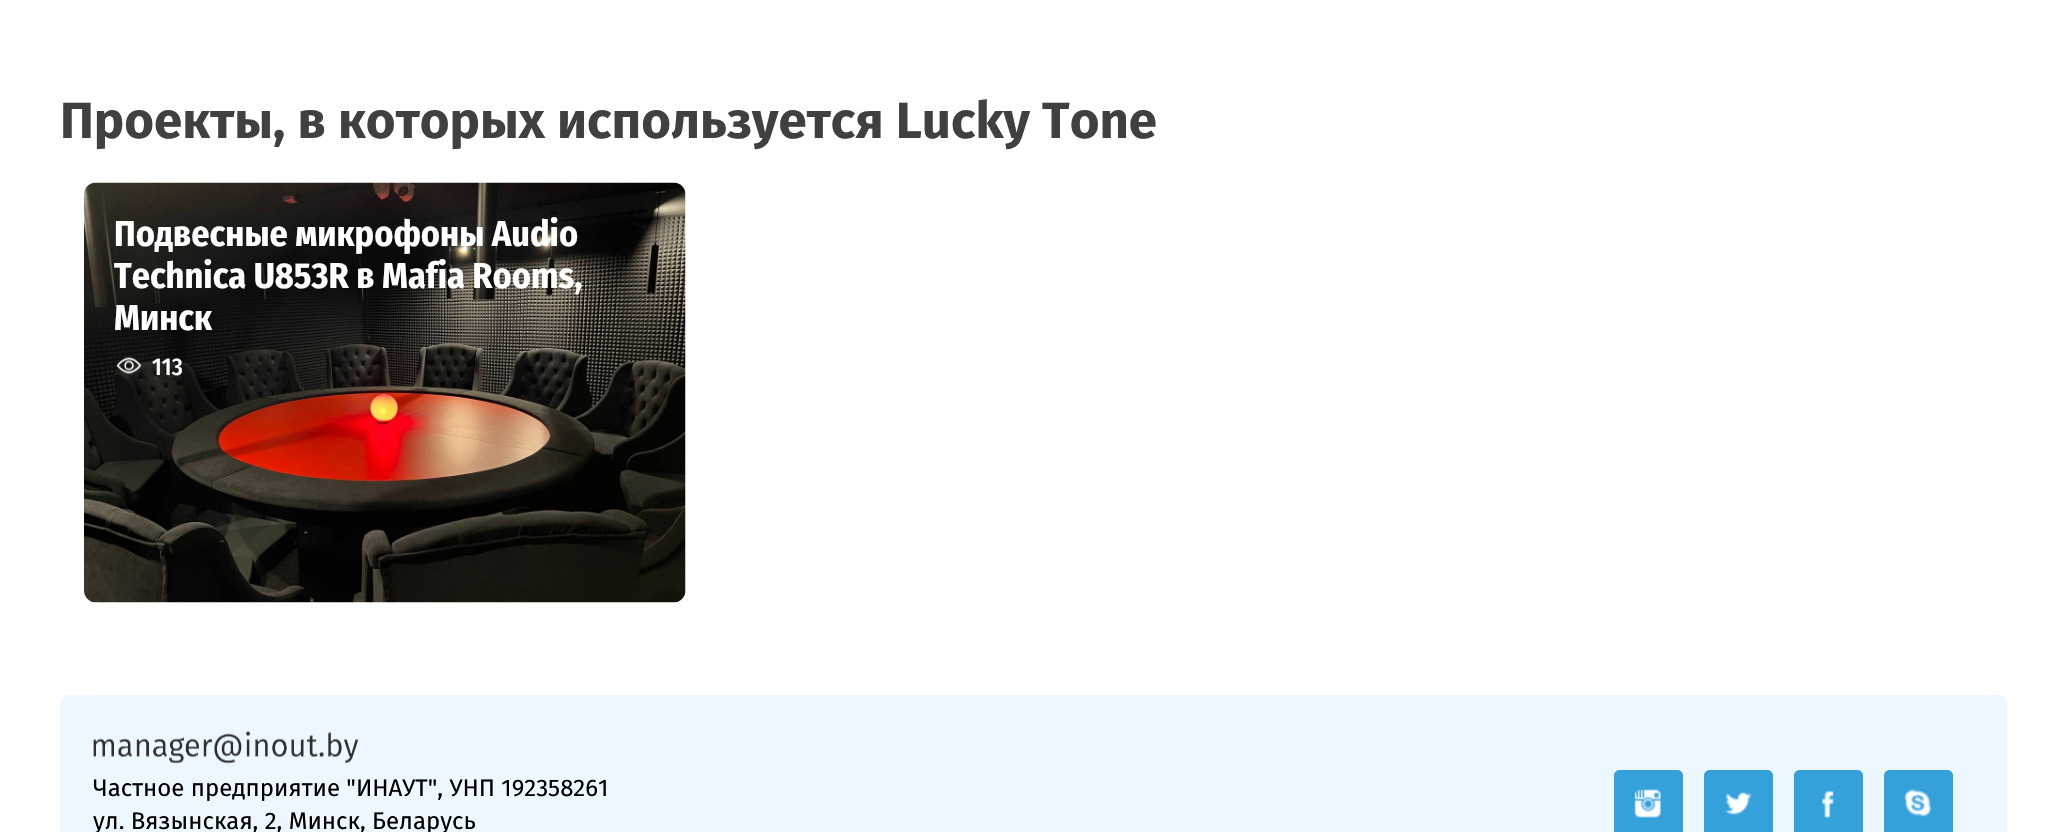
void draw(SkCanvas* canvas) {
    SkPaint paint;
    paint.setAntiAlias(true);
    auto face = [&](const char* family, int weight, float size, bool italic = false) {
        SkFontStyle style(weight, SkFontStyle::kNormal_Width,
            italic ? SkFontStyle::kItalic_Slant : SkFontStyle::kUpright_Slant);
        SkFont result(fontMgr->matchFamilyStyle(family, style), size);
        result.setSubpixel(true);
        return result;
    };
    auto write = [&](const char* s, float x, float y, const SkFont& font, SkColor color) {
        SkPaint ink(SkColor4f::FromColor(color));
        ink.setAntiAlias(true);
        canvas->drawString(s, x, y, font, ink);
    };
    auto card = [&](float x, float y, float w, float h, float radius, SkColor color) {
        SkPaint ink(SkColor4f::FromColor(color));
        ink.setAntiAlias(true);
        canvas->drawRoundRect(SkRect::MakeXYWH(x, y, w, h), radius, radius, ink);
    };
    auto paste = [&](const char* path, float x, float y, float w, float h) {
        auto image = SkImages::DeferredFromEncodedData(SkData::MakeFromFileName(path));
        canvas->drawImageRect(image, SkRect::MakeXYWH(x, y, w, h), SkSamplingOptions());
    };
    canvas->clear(SK_ColorWHITE);
    auto kFont1 = face("Fira Sans", 700, 51);
    write("Проекты, в которых используется Lucky Tone", 60, 138, kFont1, SkColorSetRGB(64, 64, 64));
    paste("pic1.png", 84, 182, 602, 421);
    auto kFont2 = face("Fira Sans Condensed", 700, 36);
    write("Подвесные микрофоны Audio", 114, 246, kFont2, SK_ColorWHITE);
    write("Technica U853R в Mafia Rooms,", 114, 288, kFont2, SK_ColorWHITE);
    write("Минск", 114, 330, kFont2, SK_ColorWHITE);
    paste("pic2.png", 116, 357, 25, 19);
    auto kFont3 = face("Fira Sans Condensed", 500, 24);
    write("113", 152, 375, kFont3, SK_ColorWHITE);
    paint.setColor(SkColorSetRGB(236, 247, 255));
    canvas->drawPath(SkPathBuilder().moveTo(69, 695).lineTo(1998, 695).cubicTo(2003, 695, 2007, 699, 2007, 704).lineTo(2007, 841).lineTo(60, 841).lineTo(60, 704).cubicTo(60, 699, 64, 695, 69, 695).close().detach(), paint);
    paste("pic3.png", 93, 731, 266, 33);
    auto kFont4 = face("Fira Sans", 400, 24);
    write("Частное предприятие \"ИНАУТ\", УНП 192358261", 93, 796, kFont4, SK_ColorBLACK);
    write("ул. Вязынская, 2, Минск, Беларусь", 93, 829, kFont4, SK_ColorBLACK);
    card(1614, 770, 69, 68, 6, SkColorSetRGB(52, 161, 219));
    paste("pic4.png", 1634, 789, 27, 29);
    paint.setStyle(SkPaint::kStroke_Style);
    paint.setStrokeWidth(3);
    paint.setColor(SkColorSetRGB(52, 161, 219));
    canvas->drawRoundRect(SkRect::MakeXYWH(1615.5f, 771.5f, 66, 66), 4.5f, 4.5f, paint);
    card(1704, 770, 69, 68, 6, SkColorSetRGB(52, 161, 219));
    paste("pic5.png", 1725, 792, 27, 23);
    canvas->drawRoundRect(SkRect::MakeXYWH(1705.5f, 771.5f, 66, 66), 4.5f, 4.5f, paint);
    card(1794, 770, 69, 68, 6, SkColorSetRGB(52, 161, 219));
    paste("pic6.png", 1822, 790, 12, 28);
    canvas->drawRoundRect(SkRect::MakeXYWH(1795.5f, 771.5f, 66, 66), 4.5f, 4.5f, paint);
    card(1884, 770, 69, 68, 6, SkColorSetRGB(52, 161, 219));
    paste("pic7.png", 1904, 789, 27, 28);
    canvas->drawRoundRect(SkRect::MakeXYWH(1885.5f, 771.5f, 66, 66), 4.5f, 4.5f, paint);
}
